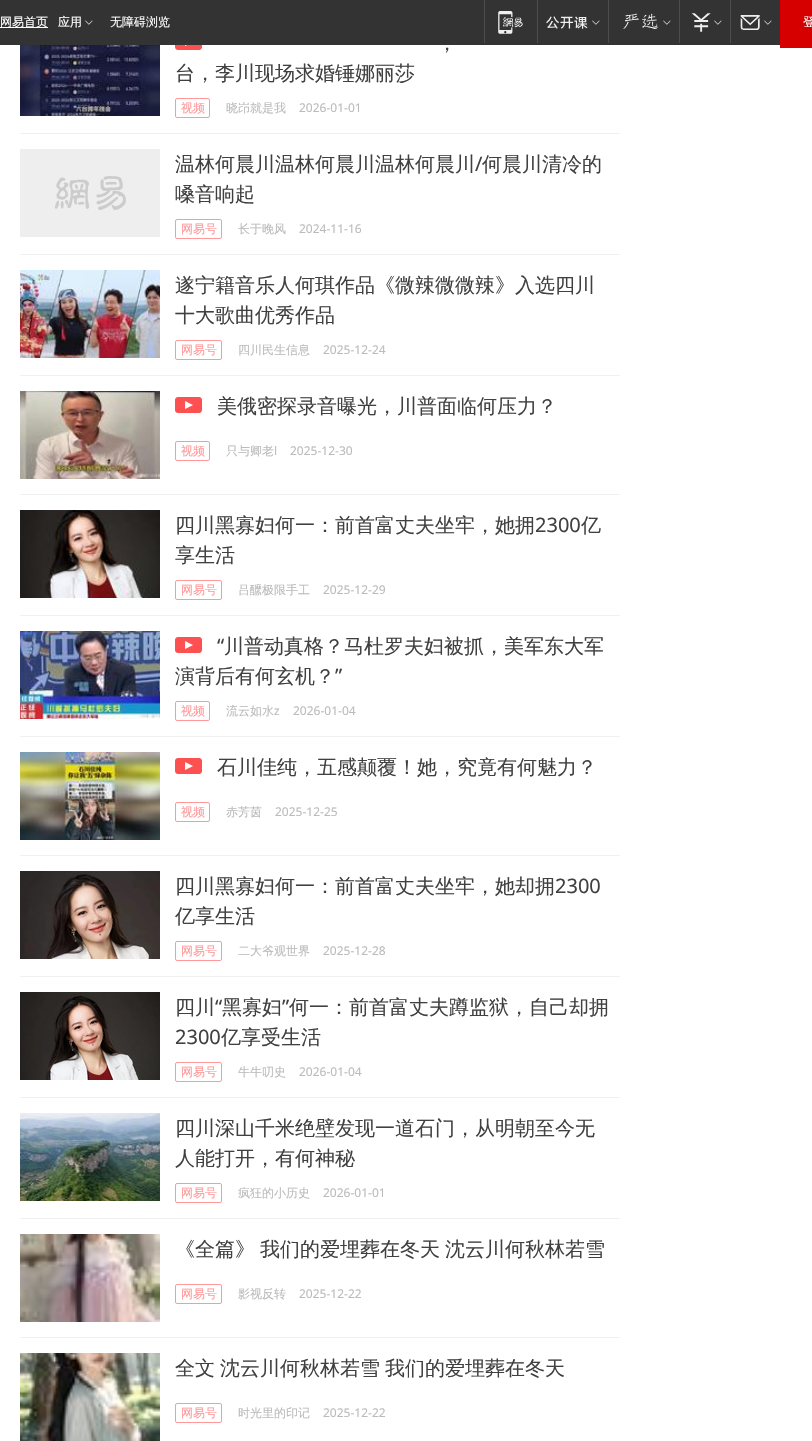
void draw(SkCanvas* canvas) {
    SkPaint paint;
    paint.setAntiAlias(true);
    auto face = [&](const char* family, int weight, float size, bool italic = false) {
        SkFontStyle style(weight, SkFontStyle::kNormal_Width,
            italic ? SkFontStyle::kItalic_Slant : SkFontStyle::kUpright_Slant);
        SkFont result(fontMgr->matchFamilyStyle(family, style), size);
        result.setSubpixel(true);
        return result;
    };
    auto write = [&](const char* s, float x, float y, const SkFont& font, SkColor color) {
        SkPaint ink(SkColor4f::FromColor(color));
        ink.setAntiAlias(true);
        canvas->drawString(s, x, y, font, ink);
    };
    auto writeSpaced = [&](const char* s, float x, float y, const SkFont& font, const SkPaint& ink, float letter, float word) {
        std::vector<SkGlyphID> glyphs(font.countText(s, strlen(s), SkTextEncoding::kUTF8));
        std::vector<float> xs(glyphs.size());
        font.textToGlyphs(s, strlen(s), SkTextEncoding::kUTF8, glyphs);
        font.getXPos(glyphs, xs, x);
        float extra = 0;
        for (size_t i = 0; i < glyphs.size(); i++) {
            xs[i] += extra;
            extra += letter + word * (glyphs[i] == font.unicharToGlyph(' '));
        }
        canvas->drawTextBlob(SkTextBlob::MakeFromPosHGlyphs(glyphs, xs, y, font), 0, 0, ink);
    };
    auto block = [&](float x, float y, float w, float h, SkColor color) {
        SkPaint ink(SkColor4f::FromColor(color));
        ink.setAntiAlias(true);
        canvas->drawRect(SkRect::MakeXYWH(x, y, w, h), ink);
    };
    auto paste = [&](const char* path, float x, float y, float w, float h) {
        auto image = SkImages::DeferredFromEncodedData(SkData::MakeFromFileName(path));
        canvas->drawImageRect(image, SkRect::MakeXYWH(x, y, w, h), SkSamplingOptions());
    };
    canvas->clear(SK_ColorWHITE);
    block(0, 0, 780, 45, SkColorSetRGB(51, 51, 51));
    block(0, 27, 48, 1, SK_ColorWHITE);
    auto kFont1 = face("WenQuanYi Zen Hei", 500, 12);
    write("网易首页", 0, 26, kFont1, SK_ColorWHITE);
    write("应用", 58, 26, kFont1, SK_ColorWHITE);
    paste("pic1.png", 85, 20, 8, 5);
    write("无障碍浏览", 110, 26, kFont1, SK_ColorWHITE);
    block(484, 0, 1, 43, SkColorSetRGB(77, 77, 77));
    paste("pic2.png", 498, 11, 25, 23);
    block(537, 0, 1, 43, SkColorSetRGB(77, 77, 77));
    paste("pic3.png", 546, 16, 42, 13);
    paste("pic1.png", 592, 20, 8, 5);
    block(608, 0, 1, 43, SkColorSetRGB(77, 77, 77));
    paste("pic4.png", 623, 13, 35, 16);
    paste("pic1.png", 663, 20, 8, 5);
    block(679, 0, 1, 43, SkColorSetRGB(77, 77, 77));
    paste("pic5.png", 691, 13, 20, 19);
    paste("pic1.png", 714, 20, 8, 5);
    block(730, 0, 1, 43, SkColorSetRGB(77, 77, 77));
    paste("pic6.png", 740, 15, 20, 15);
    paste("pic1.png", 764, 20, 8, 5);
    block(780, 0, 32, 48, SkColorSetRGB(214, 0, 0));
    write("登", 803, 26, kFont1, SK_ColorWHITE);
    block(20, 133, 600, 1, SkColorSetRGB(240, 240, 240));
    paste("pic7.png", 20, 45, 140, 71);
    paste("pic8.png", 175, 45, 27, 5);
    auto kFont2 = face("WenQuanYi Zen Hei", 500, 20);
    write("，", 437, 50, kFont2, SkColorSetRGB(64, 64, 64));
    write("台，李川现场求婚锤娜丽莎", 175, 80, kFont2, SkColorSetRGB(64, 64, 64));
    paint.setStyle(SkPaint::kStroke_Style);
    paint.setStrokeWidth(1);
    paint.setColor(SkColorSetRGB(255, 153, 153));
    canvas->drawRoundRect(SkRect::MakeXYWH(175.5f, 98.5f, 34, 19), 1.5f, 1.5f, paint);
    write("视频", 181, 112, kFont1, SkColorSetRGB(255, 153, 153));
    write("晓岇就是我", 226, 112, kFont1, SkColorSetRGB(187, 187, 187));
    auto kFont3 = face("Noto Sans", 400, 12);
    write("2026-01-01", 299, 112, kFont3, SkColorSetRGB(187, 187, 187));
    block(20, 254, 600, 1, SkColorSetRGB(240, 240, 240));
    paste("pic9.png", 20, 149, 140, 88);
    write("温林何晨川温林何晨川温林何晨川", 175, 171, kFont2, SkColorSetRGB(64, 64, 64));
    auto kFont4 = face("Noto Sans", 400, 20);
    write("/", 475, 171, kFont4, SkColorSetRGB(64, 64, 64));
    write("何晨川清冷的", 482, 171, kFont2, SkColorSetRGB(64, 64, 64));
    write("嗓音响起", 175, 201, kFont2, SkColorSetRGB(64, 64, 64));
    canvas->drawRoundRect(SkRect::MakeXYWH(175.5f, 219.5f, 46, 19), 1.5f, 1.5f, paint);
    write("网易号", 181, 233, kFont1, SkColorSetRGB(255, 153, 153));
    write("长于晚风", 238, 233, kFont1, SkColorSetRGB(187, 187, 187));
    write("2024-11-16", 299, 233, kFont3, SkColorSetRGB(187, 187, 187));
    block(20, 375, 600, 1, SkColorSetRGB(240, 240, 240));
    paste("pic10.png", 20, 270, 140, 88);
    write("遂宁籍音乐人何琪作品《微辣微微辣》入选四川", 175, 292, kFont2, SkColorSetRGB(64, 64, 64));
    write("十大歌曲优秀作品", 175, 322, kFont2, SkColorSetRGB(64, 64, 64));
    canvas->drawRoundRect(SkRect::MakeXYWH(175.5f, 340.5f, 46, 19), 1.5f, 1.5f, paint);
    write("网易号", 181, 354, kFont1, SkColorSetRGB(255, 153, 153));
    write("四川民生信息", 238, 354, kFont1, SkColorSetRGB(187, 187, 187));
    write("2025-12-24", 323, 354, kFont3, SkColorSetRGB(187, 187, 187));
    block(20, 494, 600, 1, SkColorSetRGB(240, 240, 240));
    paste("pic11.png", 20, 391, 140, 88);
    paste("pic12.png", 175, 397, 27, 16);
    write("美俄密探录音曝光，川普面临何压力？", 217, 413, kFont2, SkColorSetRGB(64, 64, 64));
    canvas->drawRoundRect(SkRect::MakeXYWH(175.5f, 441.5f, 34, 19), 1.5f, 1.5f, paint);
    write("视频", 181, 455, kFont1, SkColorSetRGB(255, 153, 153));
    write("只与卿老", 226, 455, kFont1, SkColorSetRGB(187, 187, 187));
    write("l", 274, 455, kFont3, SkColorSetRGB(187, 187, 187));
    write("2025-12-30", 290, 455, kFont3, SkColorSetRGB(187, 187, 187));
    block(20, 615, 600, 1, SkColorSetRGB(240, 240, 240));
    paste("pic13.png", 20, 510, 140, 88);
    write("四川黑寡妇何一：前首富丈夫坐牢，她拥", 175, 532, kFont2, SkColorSetRGB(64, 64, 64));
    write("2300", 535, 532, kFont4, SkColorSetRGB(64, 64, 64));
    write("亿", 581, 532, kFont2, SkColorSetRGB(64, 64, 64));
    write("享生活", 175, 562, kFont2, SkColorSetRGB(64, 64, 64));
    canvas->drawRoundRect(SkRect::MakeXYWH(175.5f, 580.5f, 46, 19), 1.5f, 1.5f, paint);
    write("网易号", 181, 594, kFont1, SkColorSetRGB(255, 153, 153));
    write("吕醿极限手工", 238, 594, kFont1, SkColorSetRGB(187, 187, 187));
    write("2025-12-29", 323, 594, kFont3, SkColorSetRGB(187, 187, 187));
    block(20, 736, 600, 1, SkColorSetRGB(240, 240, 240));
    paste("pic14.png", 20, 631, 140, 88);
    paste("pic12.png", 175, 637, 27, 16);
    write("“", 217, 653, kFont4, SkColorSetRGB(64, 64, 64));
    write("川普动真格？马杜罗夫妇被抓，美军东大军", 224, 653, kFont2, SkColorSetRGB(64, 64, 64));
    write("演背后有何玄机？", 175, 683, kFont2, SkColorSetRGB(64, 64, 64));
    write("”", 335, 683, kFont4, SkColorSetRGB(64, 64, 64));
    canvas->drawRoundRect(SkRect::MakeXYWH(175.5f, 701.5f, 34, 19), 1.5f, 1.5f, paint);
    write("视频", 181, 715, kFont1, SkColorSetRGB(255, 153, 153));
    write("流云如水", 226, 715, kFont1, SkColorSetRGB(187, 187, 187));
    write("z", 274, 715, kFont3, SkColorSetRGB(187, 187, 187));
    write("2026-01-04", 293, 715, kFont3, SkColorSetRGB(187, 187, 187));
    block(20, 855, 600, 1, SkColorSetRGB(240, 240, 240));
    paste("pic15.png", 20, 752, 140, 88);
    paste("pic12.png", 175, 758, 27, 16);
    write("石川佳纯，五感颠覆！她，究竟有何魅力？", 217, 774, kFont2, SkColorSetRGB(64, 64, 64));
    canvas->drawRoundRect(SkRect::MakeXYWH(175.5f, 802.5f, 34, 19), 1.5f, 1.5f, paint);
    write("视频", 181, 816, kFont1, SkColorSetRGB(255, 153, 153));
    write("赤芳茵", 226, 816, kFont1, SkColorSetRGB(187, 187, 187));
    write("2025-12-25", 275, 816, kFont3, SkColorSetRGB(187, 187, 187));
    block(20, 976, 600, 1, SkColorSetRGB(240, 240, 240));
    paste("pic16.png", 20, 871, 140, 88);
    write("四川黑寡妇何一：前首富丈夫坐牢，她却拥", 175, 893, kFont2, SkColorSetRGB(64, 64, 64));
    write("2300", 555, 893, kFont4, SkColorSetRGB(64, 64, 64));
    write("亿享生活", 175, 923, kFont2, SkColorSetRGB(64, 64, 64));
    canvas->drawRoundRect(SkRect::MakeXYWH(175.5f, 941.5f, 46, 19), 1.5f, 1.5f, paint);
    write("网易号", 181, 955, kFont1, SkColorSetRGB(255, 153, 153));
    write("二大爷观世界", 238, 955, kFont1, SkColorSetRGB(187, 187, 187));
    write("2025-12-28", 323, 955, kFont3, SkColorSetRGB(187, 187, 187));
    block(20, 1097, 600, 1, SkColorSetRGB(240, 240, 240));
    paste("pic17.png", 20, 992, 140, 88);
    write("四川", 175, 1014, kFont2, SkColorSetRGB(64, 64, 64));
    write("“", 215, 1014, kFont4, SkColorSetRGB(64, 64, 64));
    write("黑寡妇", 222, 1014, kFont2, SkColorSetRGB(64, 64, 64));
    write("”", 282, 1014, kFont4, SkColorSetRGB(64, 64, 64));
    write("何一：前首富丈夫蹲监狱，自己却拥", 289, 1014, kFont2, SkColorSetRGB(64, 64, 64));
    write("2300", 175, 1044, kFont4, SkColorSetRGB(64, 64, 64));
    write("亿享受生活", 221, 1044, kFont2, SkColorSetRGB(64, 64, 64));
    canvas->drawRoundRect(SkRect::MakeXYWH(175.5f, 1062.5f, 46, 19), 1.5f, 1.5f, paint);
    write("网易号", 181, 1076, kFont1, SkColorSetRGB(255, 153, 153));
    write("牛牛叨史", 238, 1076, kFont1, SkColorSetRGB(187, 187, 187));
    write("2026-01-04", 299, 1076, kFont3, SkColorSetRGB(187, 187, 187));
    block(20, 1218, 600, 1, SkColorSetRGB(240, 240, 240));
    paste("pic18.png", 20, 1113, 140, 88);
    write("四川深山千米绝壁发现一道石门，从明朝至今无", 175, 1135, kFont2, SkColorSetRGB(64, 64, 64));
    write("人能打开，有何神秘", 175, 1165, kFont2, SkColorSetRGB(64, 64, 64));
    canvas->drawRoundRect(SkRect::MakeXYWH(175.5f, 1183.5f, 46, 19), 1.5f, 1.5f, paint);
    write("网易号", 181, 1197, kFont1, SkColorSetRGB(255, 153, 153));
    write("疯狂的小历史", 238, 1197, kFont1, SkColorSetRGB(187, 187, 187));
    write("2026-01-01", 323, 1197, kFont3, SkColorSetRGB(187, 187, 187));
    block(20, 1337, 600, 1, SkColorSetRGB(240, 240, 240));
    paste("pic19.png", 20, 1234, 140, 88);
    paint.setStyle(SkPaint::kFill_Style);
    paint.setColor(SkColorSetRGB(64, 64, 64));
    writeSpaced("《全篇》 我们的爱埋葬在冬天 沈云川何秋林若雪", 175, 1256, kFont2, paint, 0, -1);
    paint.setStyle(SkPaint::kStroke_Style);
    paint.setColor(SkColorSetRGB(255, 153, 153));
    canvas->drawRoundRect(SkRect::MakeXYWH(175.5f, 1284.5f, 46, 19), 1.5f, 1.5f, paint);
    write("网易号", 181, 1298, kFont1, SkColorSetRGB(255, 153, 153));
    write("影视反转", 238, 1298, kFont1, SkColorSetRGB(187, 187, 187));
    write("2025-12-22", 299, 1298, kFont3, SkColorSetRGB(187, 187, 187));
    paste("pic20.png", 20, 1353, 140, 88);
    paint.setStyle(SkPaint::kFill_Style);
    paint.setColor(SkColorSetRGB(64, 64, 64));
    writeSpaced("全文 沈云川何秋林若雪 我们的爱埋葬在冬天", 175, 1375, kFont2, paint, 0, -1);
    paint.setStyle(SkPaint::kStroke_Style);
    paint.setColor(SkColorSetRGB(255, 153, 153));
    canvas->drawRoundRect(SkRect::MakeXYWH(175.5f, 1403.5f, 46, 19), 1.5f, 1.5f, paint);
    write("网易号", 181, 1417, kFont1, SkColorSetRGB(255, 153, 153));
    write("时光里的印记", 238, 1417, kFont1, SkColorSetRGB(187, 187, 187));
    write("2025-12-22", 323, 1417, kFont3, SkColorSetRGB(187, 187, 187));
}
